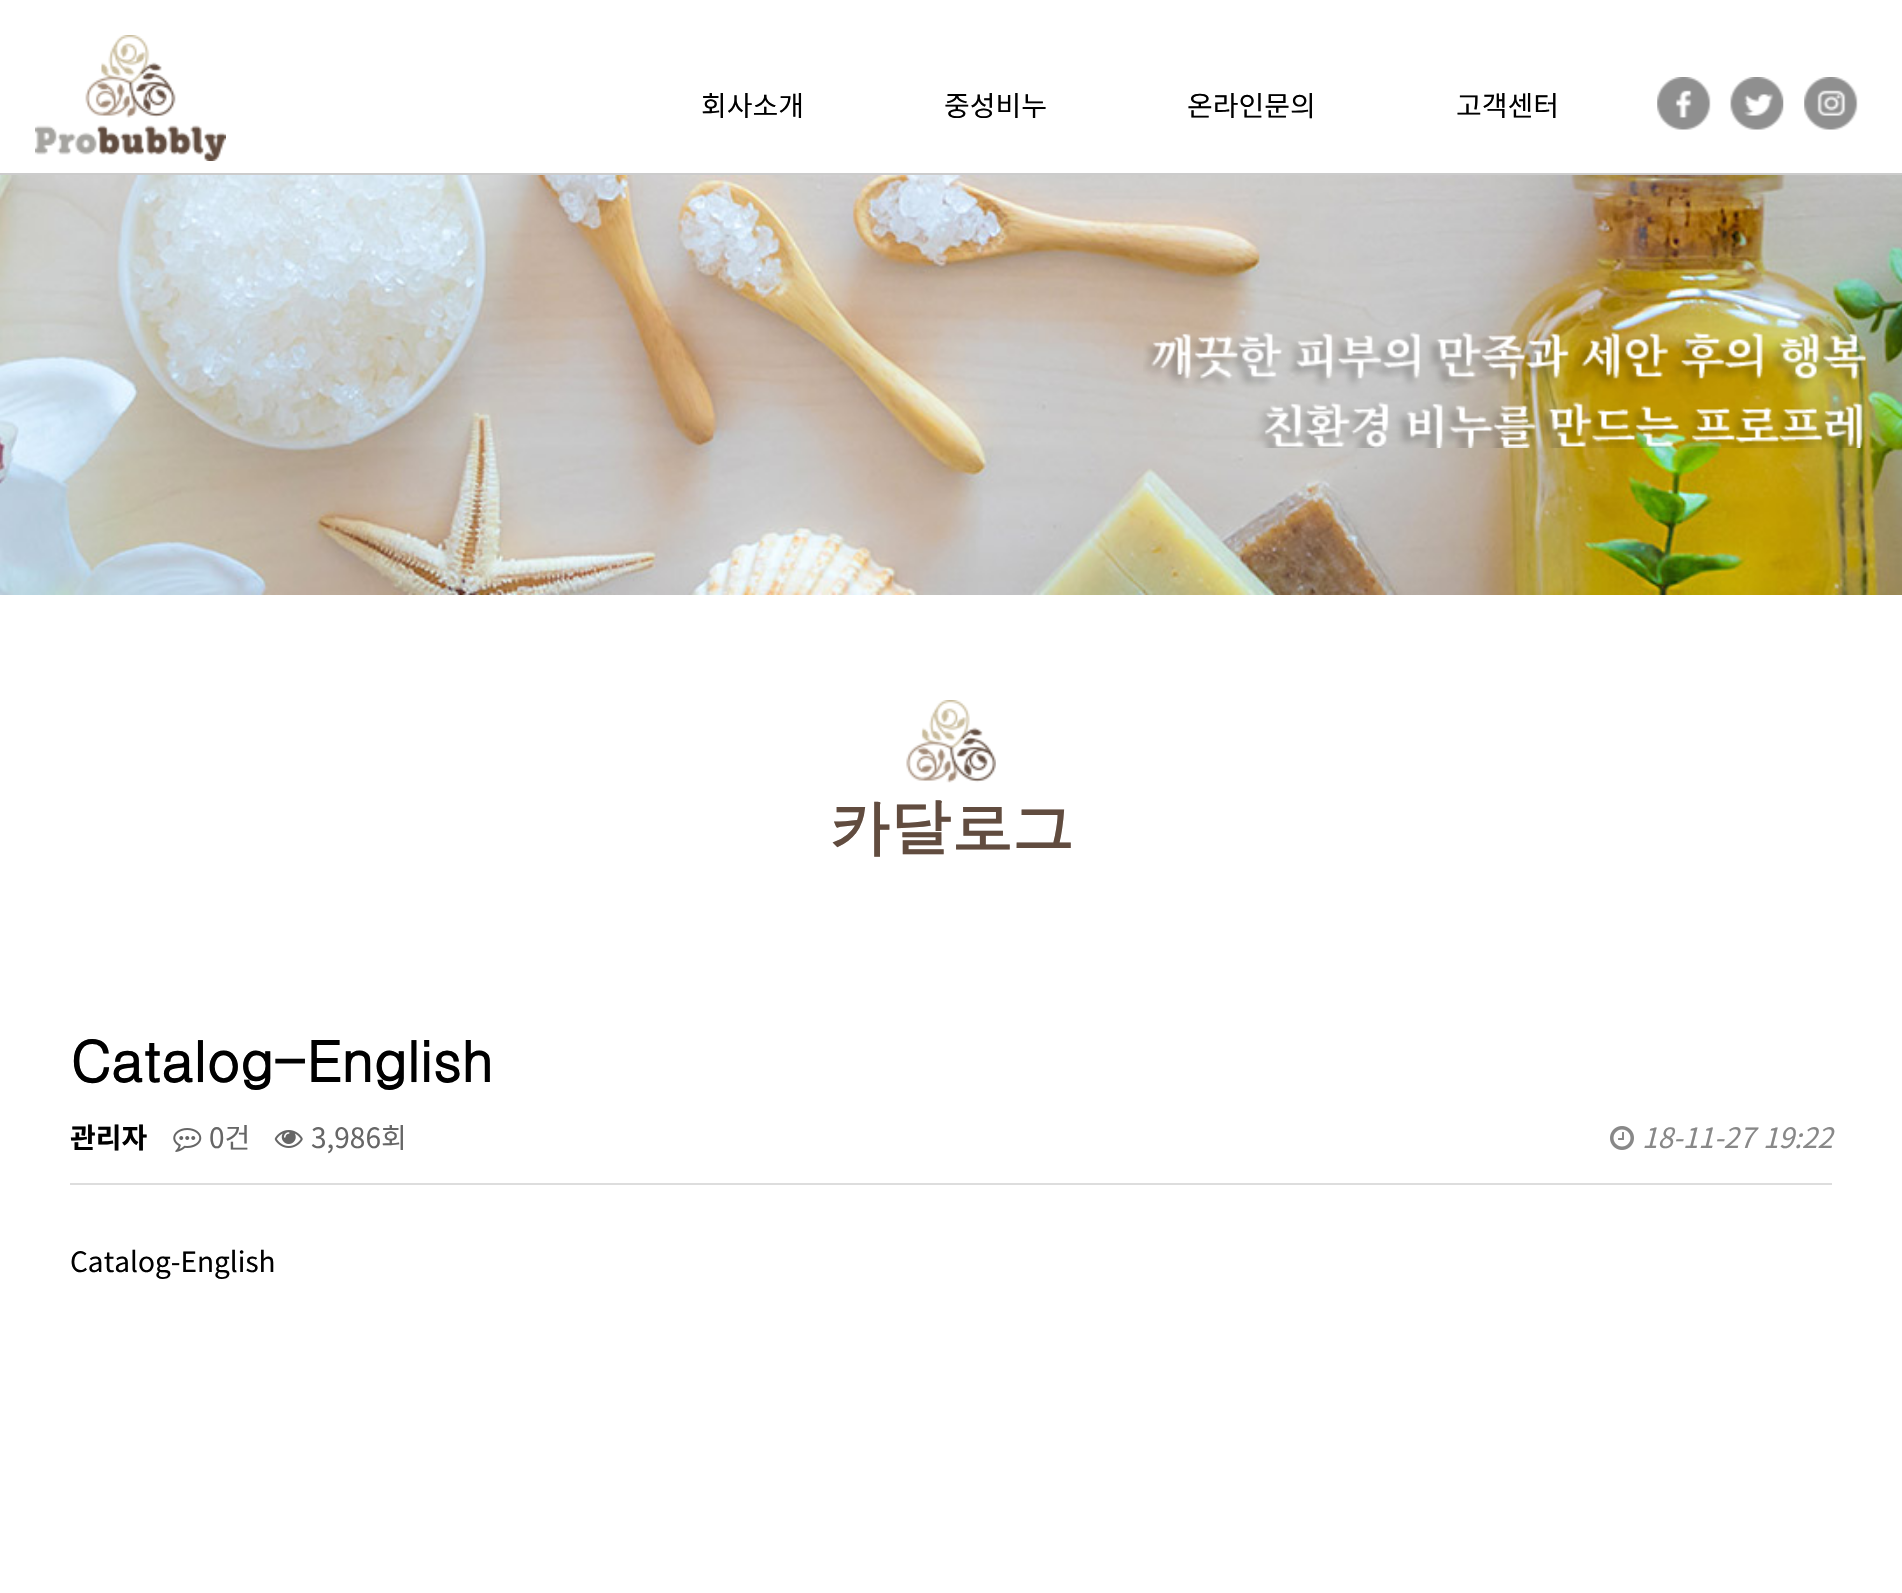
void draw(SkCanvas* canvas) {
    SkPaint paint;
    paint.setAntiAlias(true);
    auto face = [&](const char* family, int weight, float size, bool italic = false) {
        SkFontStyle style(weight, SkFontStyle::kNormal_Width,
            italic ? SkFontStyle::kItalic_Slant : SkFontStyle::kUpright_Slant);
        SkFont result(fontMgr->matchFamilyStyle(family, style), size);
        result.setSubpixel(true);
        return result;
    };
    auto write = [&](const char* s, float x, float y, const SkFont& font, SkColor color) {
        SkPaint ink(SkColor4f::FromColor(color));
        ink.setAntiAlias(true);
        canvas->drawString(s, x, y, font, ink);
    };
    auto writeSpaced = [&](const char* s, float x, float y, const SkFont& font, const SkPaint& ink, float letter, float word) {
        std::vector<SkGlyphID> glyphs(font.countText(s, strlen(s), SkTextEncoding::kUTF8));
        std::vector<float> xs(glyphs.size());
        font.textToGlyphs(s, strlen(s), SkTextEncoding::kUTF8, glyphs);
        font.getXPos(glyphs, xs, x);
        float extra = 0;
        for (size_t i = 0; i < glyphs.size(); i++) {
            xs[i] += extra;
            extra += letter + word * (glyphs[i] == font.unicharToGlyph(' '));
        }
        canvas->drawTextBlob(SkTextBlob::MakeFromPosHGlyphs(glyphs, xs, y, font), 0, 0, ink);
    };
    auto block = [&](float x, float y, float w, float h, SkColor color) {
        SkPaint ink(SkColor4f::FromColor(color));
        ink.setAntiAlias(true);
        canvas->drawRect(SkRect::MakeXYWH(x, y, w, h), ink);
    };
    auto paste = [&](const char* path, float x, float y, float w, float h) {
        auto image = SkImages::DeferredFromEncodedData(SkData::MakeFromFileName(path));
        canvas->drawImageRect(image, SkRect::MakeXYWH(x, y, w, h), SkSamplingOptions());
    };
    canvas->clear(SK_ColorWHITE);
    block(0, 173, 1902, 2, SkColorSetRGB(204, 204, 204));
    paste("pic1.png", 35, 35, 191, 126);
    auto kFont1 = face("Noto Sans KR", 400, 28);
    write("회사소개", 701, 116, kFont1, SK_ColorBLACK);
    write("중성비누", 944, 116, kFont1, SK_ColorBLACK);
    write("온라인문의", 1187, 116, kFont1, SK_ColorBLACK);
    write("고객센터", 1456, 116, kFont1, SK_ColorBLACK);
    paste("pic2.png", 1657, 77, 54, 53);
    paste("pic3.png", 1730, 77, 54, 53);
    paste("pic4.png", 1804, 77, 54, 53);
    paste("pic5.png", 0, 175, 1902, 420);
    paste("pic6.png", 1143, 332, 724, 116);
    paste("pic7.png", 906, 700, 90, 83);
    auto kFont2 = face("Dotum", 700, 61);
    write("카달로그", 829, 852, kFont2, SkColorSetRGB(97, 76, 63));
    auto kFont3 = face("Dotum", 700, 56);
    write("Catalog-English", 70, 1082, kFont3, SK_ColorBLACK);
    block(70, 1183, 1762, 2, SkColorSetRGB(221, 221, 221));
    auto kFont4 = face("Noto Sans KR", 700, 28);
    write("관리자", 70, 1148, kFont4, SK_ColorBLACK);
    paste("pic8.png", 173, 1128, 29, 24);
    write("0건", 209, 1148, kFont1, SkColorSetRGB(102, 102, 102));
    paste("pic9.png", 274, 1130, 29, 18);
    write("3,986회", 311, 1148, kFont1, SkColorSetRGB(102, 102, 102));
    paste("pic10.png", 1610, 1126, 24, 24);
    auto kFont5 = face("Noto Sans KR", 400, 28, true);
    paint.setColor(SkColorSetRGB(136, 136, 136));
    writeSpaced("18-11-27 19:22", 1642, 1148, kFont5, paint, 0, 2);
    write("Catalog-English", 70, 1272, kFont1, SK_ColorBLACK);
}
